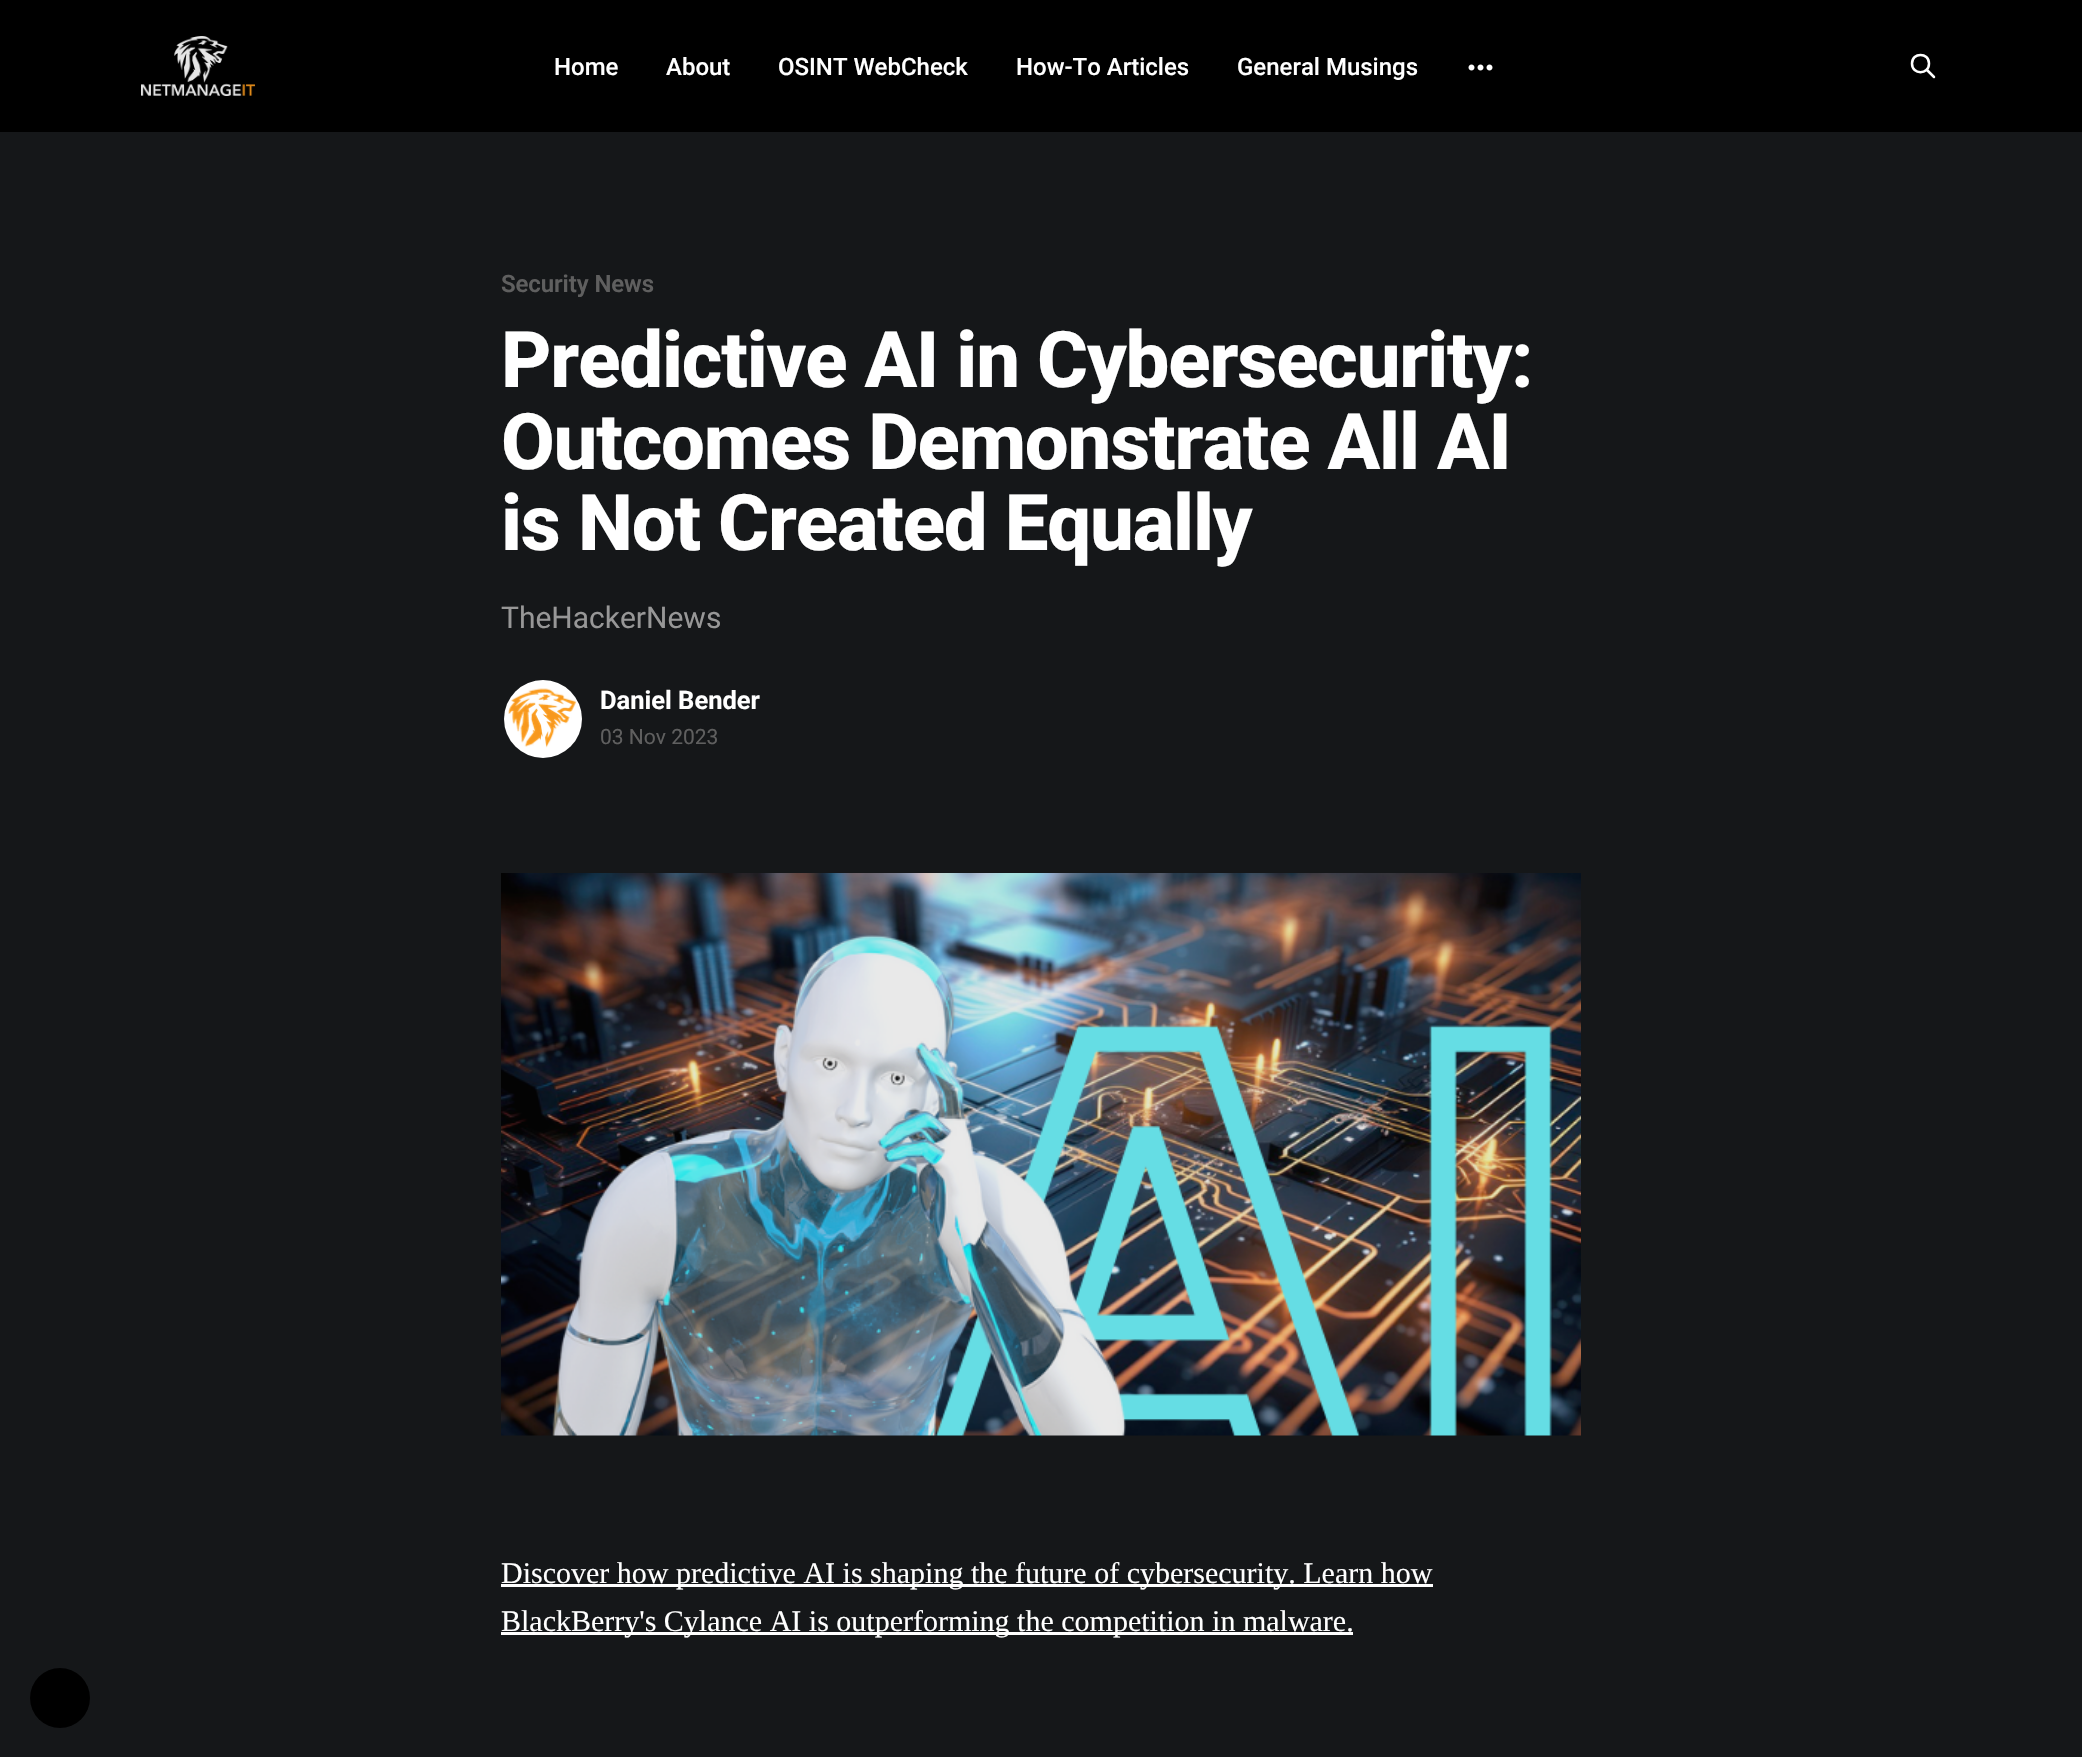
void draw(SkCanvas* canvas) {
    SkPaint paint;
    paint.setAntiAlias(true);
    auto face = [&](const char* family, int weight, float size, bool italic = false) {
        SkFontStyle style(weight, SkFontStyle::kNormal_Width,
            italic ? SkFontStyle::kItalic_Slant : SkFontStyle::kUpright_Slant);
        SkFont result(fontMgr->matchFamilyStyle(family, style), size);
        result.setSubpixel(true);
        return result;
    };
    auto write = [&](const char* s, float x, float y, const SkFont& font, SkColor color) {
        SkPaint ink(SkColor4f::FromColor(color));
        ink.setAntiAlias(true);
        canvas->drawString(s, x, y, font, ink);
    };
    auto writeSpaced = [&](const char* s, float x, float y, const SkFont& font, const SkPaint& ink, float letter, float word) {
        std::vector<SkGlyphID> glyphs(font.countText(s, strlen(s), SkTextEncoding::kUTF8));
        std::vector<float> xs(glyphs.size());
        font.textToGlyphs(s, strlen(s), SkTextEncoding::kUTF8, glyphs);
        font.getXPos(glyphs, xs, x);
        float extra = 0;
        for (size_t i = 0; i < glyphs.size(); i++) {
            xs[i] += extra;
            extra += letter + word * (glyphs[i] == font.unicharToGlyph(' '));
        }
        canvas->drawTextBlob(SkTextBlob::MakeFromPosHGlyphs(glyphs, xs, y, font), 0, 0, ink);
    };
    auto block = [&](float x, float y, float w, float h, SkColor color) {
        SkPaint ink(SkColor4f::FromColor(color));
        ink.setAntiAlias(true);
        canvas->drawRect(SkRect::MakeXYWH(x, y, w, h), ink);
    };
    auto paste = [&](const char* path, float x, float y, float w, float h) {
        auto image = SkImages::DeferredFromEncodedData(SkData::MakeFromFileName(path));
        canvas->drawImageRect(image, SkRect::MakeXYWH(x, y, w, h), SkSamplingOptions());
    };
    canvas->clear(SkColorSetRGB(21, 23, 25));
    block(0, 0, 2082, 132, SK_ColorBLACK);
    paste("pic1.png", 141, 36, 114, 60);
    auto kFont1 = face("Roboto", 500, 24);
    write("Home", 554, 75, kFont1, SK_ColorWHITE);
    write("About", 666, 75, kFont1, SK_ColorWHITE);
    write("OSINT WebCheck", 778, 75, kFont1, SK_ColorWHITE);
    write("How-To Articles", 1016, 75, kFont1, SK_ColorWHITE);
    write("General Musings", 1237, 75, kFont1, SK_ColorWHITE);
    paste("pic2.png", 1468, 64, 25, 7);
    paint.setStyle(SkPaint::kStroke_Style);
    paint.setStrokeWidth(2.5f);
    paint.setStrokeCap(SkPaint::kRound_Cap);
    paint.setStrokeJoin(SkPaint::kRound_Join);
    paint.setColor(SK_ColorWHITE);
    canvas->drawPath(SkPathBuilder().moveTo(1934, 77).lineTo(1927, 70).moveTo(1929, 63.5f).cubicTo(1929, 75, 1912, 75, 1912, 63.5f).cubicTo(1912, 52, 1929, 52, 1929, 63.5f).close().detach(), paint);
    auto kFont2 = face("Roboto", 600, 24);
    paint.setStyle(SkPaint::kFill_Style);
    paint.setColor(SkColorSetRGB(95, 95, 95));
    writeSpaced("Security News", 501, 292, kFont2, paint, -0.1f, 0);
    auto kFont3 = face("Roboto", 800, 78);
    paint.setColor(SK_ColorWHITE);
    writeSpaced("Predictive AI in Cybersecurity:", 501, 387, kFont3, paint, -1.2f, 0);
    writeSpaced("Outcomes Demonstrate All AI", 501, 469, kFont3, paint, -1.2f, 0);
    writeSpaced("is Not Created Equally", 501, 550, kFont3, paint, -1.2f, 0);
    auto kFont4 = face("Roboto", 400, 30);
    write("TheHackerNews", 501, 628, kFont4, SkColorSetRGB(151, 151, 151));
    canvas->drawCircle(543, 719, 39, paint);
    paste("pic3.png", 508, 688, 69, 60);
    auto kFont5 = face("Roboto", 700, 25.5f);
    write("Daniel Bender", 600, 709, kFont5, SK_ColorWHITE);
    auto kFont6 = face("Roboto", 400, 21);
    write("03 Nov 2023", 600, 744, kFont6, SkColorSetRGB(95, 95, 95));
    paste("pic4.png", 501, 873, 1080, 563);
    block(501, 1584, 932, 3, SK_ColorWHITE);
    auto kFont7 = face("Liberation Serif", 400, 30);
    write("Discover how predictive AI is shaping the future of cybersecurity. Learn how", 501, 1583, kFont7, SK_ColorWHITE);
    block(501, 1632, 852, 3, SK_ColorWHITE);
    write("BlackBerry's Cylance AI is outperforming the competition in malware.", 501, 1631, kFont7, SK_ColorWHITE);
    paint.setColor(SK_ColorBLACK);
    canvas->drawCircle(60, 1698, 30, paint);
}
